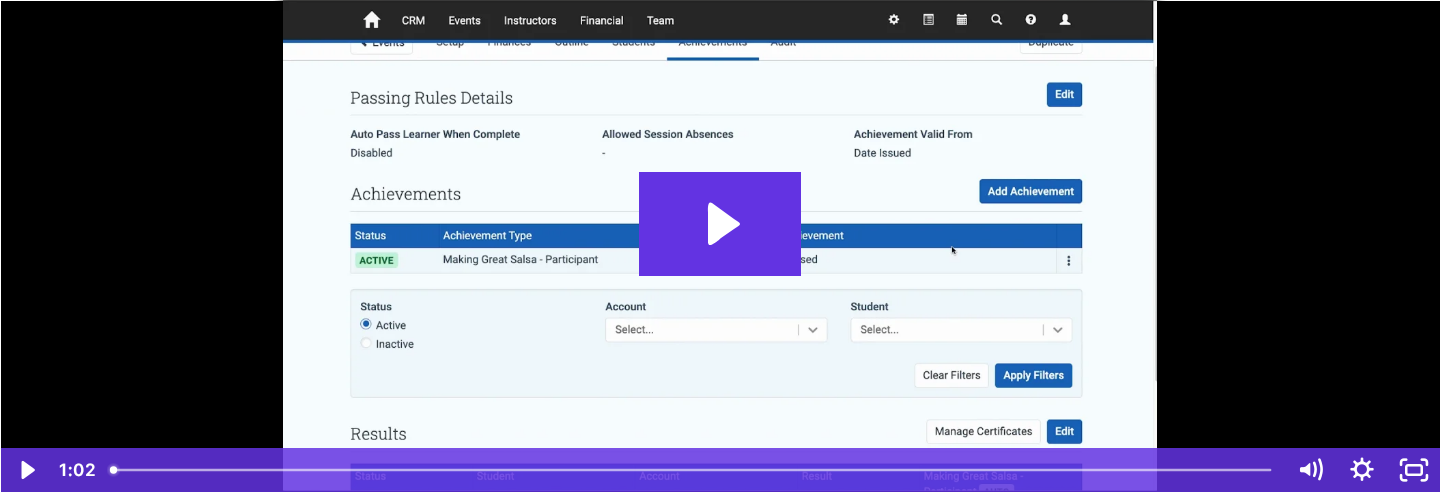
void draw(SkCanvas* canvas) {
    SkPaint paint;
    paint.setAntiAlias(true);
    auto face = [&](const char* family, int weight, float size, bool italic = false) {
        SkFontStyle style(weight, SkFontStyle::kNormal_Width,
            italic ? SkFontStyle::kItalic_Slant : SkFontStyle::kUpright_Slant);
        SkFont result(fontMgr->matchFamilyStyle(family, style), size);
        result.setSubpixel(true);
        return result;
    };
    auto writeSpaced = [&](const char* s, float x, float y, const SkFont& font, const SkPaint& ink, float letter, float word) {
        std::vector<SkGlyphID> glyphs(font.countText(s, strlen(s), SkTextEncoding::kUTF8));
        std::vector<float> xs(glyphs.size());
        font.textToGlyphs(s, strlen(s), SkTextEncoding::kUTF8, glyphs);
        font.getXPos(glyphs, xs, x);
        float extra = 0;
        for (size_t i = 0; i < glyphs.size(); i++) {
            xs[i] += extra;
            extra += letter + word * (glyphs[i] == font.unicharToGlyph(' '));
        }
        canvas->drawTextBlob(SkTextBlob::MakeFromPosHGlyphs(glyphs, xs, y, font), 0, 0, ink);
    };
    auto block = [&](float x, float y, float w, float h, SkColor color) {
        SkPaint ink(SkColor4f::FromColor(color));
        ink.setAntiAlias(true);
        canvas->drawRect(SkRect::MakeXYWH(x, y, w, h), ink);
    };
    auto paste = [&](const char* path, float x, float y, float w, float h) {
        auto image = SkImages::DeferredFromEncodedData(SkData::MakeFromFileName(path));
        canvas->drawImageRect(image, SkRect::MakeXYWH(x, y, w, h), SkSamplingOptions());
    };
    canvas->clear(SK_ColorWHITE);
    paste("pic1.png", 273, 0, 894, 1);
    block(1, 1, 1439, 491, SK_ColorBLACK);
    paste("pic3.png", 275, 0, 890, 1);
    paste("pic2.png", 283, 0, 874, 492);
    block(639, 172, 162, 104, SkColorSetRGB(99, 51, 226));
    paint.setColor(SK_ColorWHITE);
    canvas->drawPath(SkPathBuilder(SkPathFillType::kEvenOdd).moveTo(712, 203).cubicTo(707, 200, 708, 211, 708, 212).lineTo(708, 243).lineTo(709, 245).cubicTo(712, 246, 719, 240, 721, 238).lineTo(734, 229).cubicTo(742, 224, 742, 224, 734, 219).close().detach(), paint);
    block(1, 448, 1439, 44, SkColorSetARGB(217, 99, 51, 226));
    paste("pic4.png", 21, 460, 14, 20);
    auto kFont1 = face("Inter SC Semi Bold", 600, 17);
    writeSpaced("1:02", 59, 476, kFont1, paint, 0.5f, 0);
    paste("pic5.png", 107, 463, 1165, 14);
    paste("pic6.png", 1299, 458, 24, 23);
    paste("pic7.png", 1350, 457, 24, 24);
    paste("pic8.png", 1399, 458, 30, 24);
}
